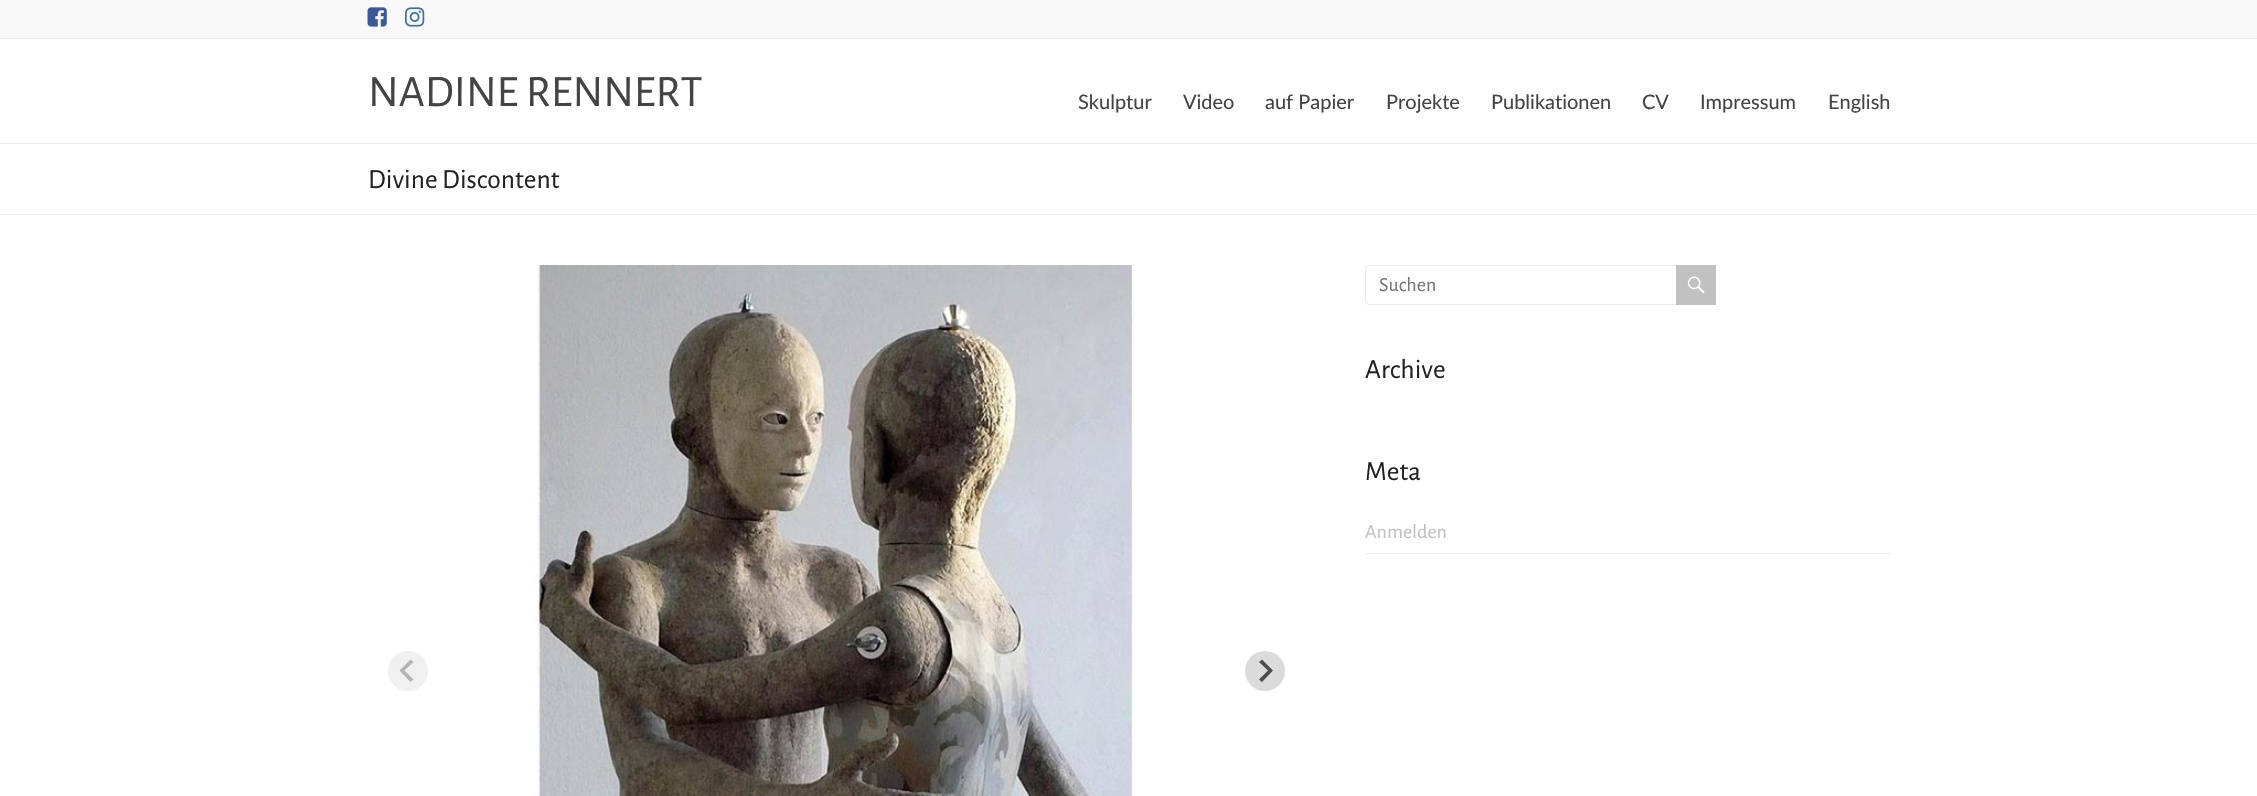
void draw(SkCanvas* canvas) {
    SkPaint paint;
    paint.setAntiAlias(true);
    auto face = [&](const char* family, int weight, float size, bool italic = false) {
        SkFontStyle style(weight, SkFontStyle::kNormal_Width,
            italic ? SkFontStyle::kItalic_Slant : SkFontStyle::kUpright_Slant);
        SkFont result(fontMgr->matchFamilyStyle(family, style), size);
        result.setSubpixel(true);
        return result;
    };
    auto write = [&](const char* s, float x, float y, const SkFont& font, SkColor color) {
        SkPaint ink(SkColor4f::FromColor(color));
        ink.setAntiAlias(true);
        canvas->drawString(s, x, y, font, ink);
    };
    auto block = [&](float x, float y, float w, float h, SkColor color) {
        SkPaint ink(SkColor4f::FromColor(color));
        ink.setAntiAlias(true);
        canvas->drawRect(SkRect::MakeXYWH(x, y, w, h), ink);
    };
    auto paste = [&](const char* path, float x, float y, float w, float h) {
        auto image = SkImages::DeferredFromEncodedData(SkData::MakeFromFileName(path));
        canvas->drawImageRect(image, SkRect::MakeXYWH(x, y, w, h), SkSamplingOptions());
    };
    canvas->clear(SK_ColorWHITE);
    block(0, 0, 2257, 38, SkColorSetRGB(248, 248, 248));
    block(0, 38, 2257, 1, SkColorSetRGB(234, 234, 234));
    paste("pic1.png", 367, 7, 20, 20);
    paste("pic2.png", 405, 7, 20, 20);
    block(0, 143, 2257, 1, SkColorSetRGB(234, 234, 234));
    auto kFont1 = face("Alegreya Sans", 400, 45);
    write("NADINE RENNERT", 368, 106, kFont1, SkColorSetRGB(68, 68, 68));
    auto kFont2 = face("Lato", 400, 20);
    write("Skulptur", 1078, 109, kFont2, SkColorSetRGB(68, 68, 68));
    write("Video", 1183, 109, kFont2, SkColorSetRGB(68, 68, 68));
    write("auf Papier", 1265, 109, kFont2, SkColorSetRGB(68, 68, 68));
    write("Projekte", 1386, 109, kFont2, SkColorSetRGB(68, 68, 68));
    write("Publikationen", 1491, 109, kFont2, SkColorSetRGB(68, 68, 68));
    write("CV", 1642, 109, kFont2, SkColorSetRGB(68, 68, 68));
    write("Impressum", 1700, 109, kFont2, SkColorSetRGB(68, 68, 68));
    write("English", 1828, 109, kFont2, SkColorSetRGB(68, 68, 68));
    block(0, 214, 2257, 1, SkColorSetRGB(234, 234, 234));
    auto kFont3 = face("Alegreya Sans", 400, 27.5f);
    write("Divine Discontent", 368, 188, kFont3, SkColorSetRGB(34, 34, 34));
    paste("pic3.png", 535, 265, 599, 531);
    paint.setColor(SkColorSetRGB(240, 240, 240));
    canvas->drawCircle(408, 671, 20, paint);
    paint.setColor(SkColorSetRGB(179, 179, 179));
    canvas->drawPath(SkPathBuilder().moveTo(410.5f, 659.5f).lineTo(413.5f, 662).lineTo(404.5f, 670.5f).lineTo(413.5f, 679.5f).lineTo(410.5f, 682).lineTo(399.5f, 670.5f).close().detach(), paint);
    paint.setColor(SkColorSetRGB(219, 219, 219));
    canvas->drawCircle(1265, 671, 20, paint);
    paint.setColor(SkColorSetRGB(77, 77, 77));
    canvas->drawPath(SkPathBuilder().moveTo(1262, 659.5f).lineTo(1259, 662).lineTo(1268, 670.5f).lineTo(1259, 679.5f).lineTo(1262, 682).lineTo(1273, 670.5f).close().detach(), paint);
    paint.setStyle(SkPaint::kStroke_Style);
    paint.setStrokeWidth(1);
    paint.setColor(SkColorSetRGB(234, 234, 234));
    canvas->drawRoundRect(SkRect::MakeXYWH(1365.5f, 265.5f, 314, 39), 3.5f, 3.5f, paint);
    auto kFont4 = face("Alegreya Sans", 400, 20);
    write("Suchen", 1379, 291, kFont4, SkColorSetRGB(117, 117, 117));
    block(1676, 265, 40, 40, SkColorSetRGB(193, 193, 193));
    paste("pic4.png", 1687, 276, 18, 18);
    write("Archive", 1365, 378, kFont3, SkColorSetRGB(34, 34, 34));
    write("Meta", 1365, 480, kFont3, SkColorSetRGB(34, 34, 34));
    block(1365, 553, 525, 1, SkColorSetRGB(234, 234, 234));
    write("Anmelden", 1365, 538, kFont4, SkColorSetRGB(193, 193, 193));
}
